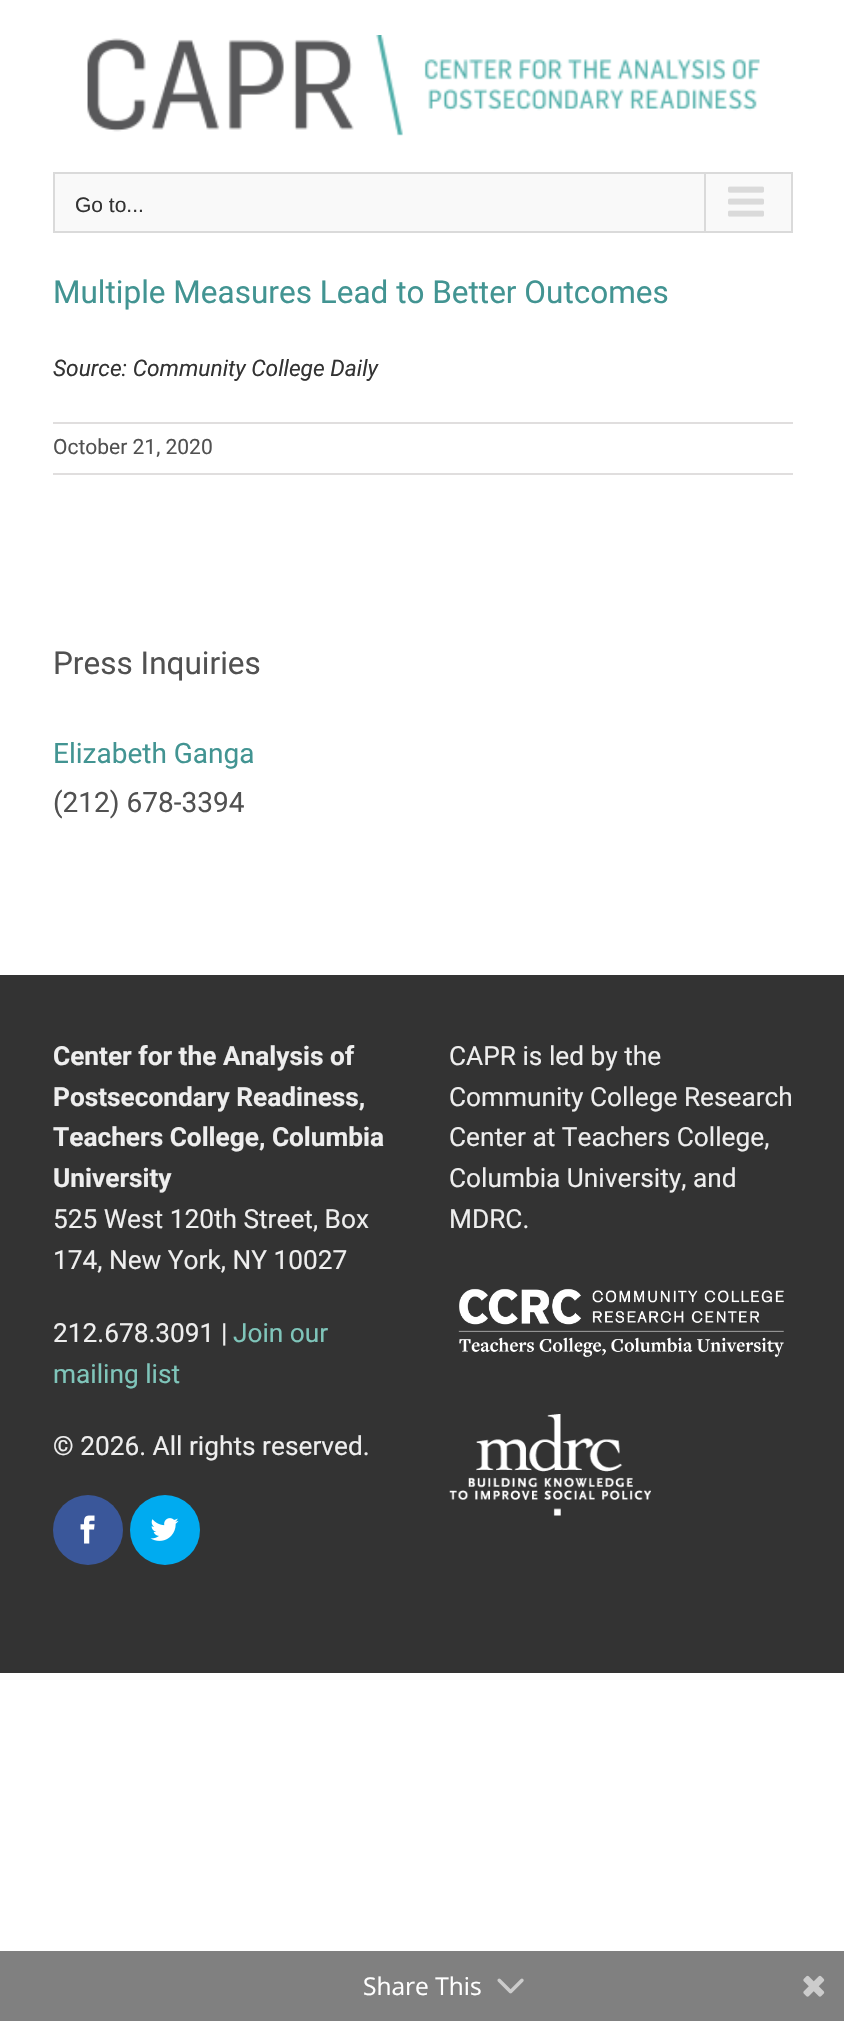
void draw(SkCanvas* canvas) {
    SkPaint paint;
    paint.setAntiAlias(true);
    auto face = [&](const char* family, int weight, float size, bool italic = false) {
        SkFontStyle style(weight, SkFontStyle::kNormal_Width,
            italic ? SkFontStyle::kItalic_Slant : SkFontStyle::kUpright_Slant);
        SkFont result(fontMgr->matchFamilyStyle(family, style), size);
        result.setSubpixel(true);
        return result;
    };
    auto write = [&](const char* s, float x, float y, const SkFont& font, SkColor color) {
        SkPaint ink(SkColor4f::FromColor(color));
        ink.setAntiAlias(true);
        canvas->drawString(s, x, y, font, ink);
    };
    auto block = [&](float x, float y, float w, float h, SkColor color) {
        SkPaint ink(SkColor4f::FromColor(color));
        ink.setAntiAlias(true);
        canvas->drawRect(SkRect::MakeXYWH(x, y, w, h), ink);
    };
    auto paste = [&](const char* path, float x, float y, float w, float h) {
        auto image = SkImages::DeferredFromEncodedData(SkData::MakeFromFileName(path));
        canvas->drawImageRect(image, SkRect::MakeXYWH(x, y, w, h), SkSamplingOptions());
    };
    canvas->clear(SK_ColorWHITE);
    paste("pic1.png", 87, 35, 673, 101);
    paint.setColor(SkColorSetRGB(249, 249, 249));
    canvas->drawRect(SkRect::MakeXYWH(54, 173, 738, 59), paint);
    paint.setStyle(SkPaint::kStroke_Style);
    paint.setStrokeWidth(2);
    paint.setColor(SkColorSetRGB(218, 218, 218));
    canvas->drawRect(SkRect::MakeXYWH(54, 173, 738, 59), paint);
    auto kFont1 = face("Liberation Sans", 400, 21);
    write("Go to...", 75, 212, kFont1, SkColorSetRGB(51, 51, 51));
    block(704, 173, 2, 58, SkColorSetRGB(218, 218, 218));
    paste("pic2.png", 728, 186, 36, 31);
    auto kFont2 = face("Roboto", 400, 31.5f);
    write("Multiple Measures Lead to Better Outcomes", 53, 303, kFont2, SkColorSetRGB(66, 148, 146));
    auto kFont3 = face("Roboto", 400, 22.75f, true);
    write("Source: Community College Daily", 53, 376, kFont3, SkColorSetRGB(51, 51, 51));
    block(53, 422, 740, 2, SkColorSetRGB(224, 222, 222));
    block(53, 473, 740, 2, SkColorSetRGB(224, 222, 222));
    auto kFont4 = face("Roboto", 400, 21);
    write("October 21, 2020", 53, 454, kFont4, SkColorSetRGB(81, 81, 81));
    write("Press Inquiries", 53, 674, kFont2, SkColorSetRGB(81, 81, 81));
    auto kFont5 = face("Roboto", 400, 28);
    write("Elizabeth Ganga", 53, 763, kFont5, SkColorSetRGB(66, 148, 146));
    write("(212) 678-3394", 53, 812, kFont5, SkColorSetRGB(81, 81, 81));
    block(0, 975, 844, 698, SkColorSetRGB(51, 51, 51));
    auto kFont6 = face("Roboto", 700, 26.25f);
    write("Center for the Analysis of", 53, 1065, kFont6, SkColorSetRGB(238, 238, 238));
    write("Postsecondary Readiness,", 53, 1106, kFont6, SkColorSetRGB(238, 238, 238));
    write("Teachers College, Columbia", 53, 1146, kFont6, SkColorSetRGB(238, 238, 238));
    write("University", 53, 1187, kFont6, SkColorSetRGB(238, 238, 238));
    auto kFont7 = face("Roboto", 400, 26.25f);
    write("525 West 120th Street, Box", 53, 1228, kFont7, SkColorSetRGB(238, 238, 238));
    write("174, New York, NY 10027", 53, 1269, kFont7, SkColorSetRGB(238, 238, 238));
    write("212.678.3091 |", 53, 1342, kFont7, SkColorSetRGB(238, 238, 238));
    write("Join our", 233, 1342, kFont7, SkColorSetRGB(127, 197, 186));
    write("mailing list", 53, 1383, kFont7, SkColorSetRGB(127, 197, 186));
    write("© 2026. All rights reserved.", 53, 1455, kFont7, SkColorSetRGB(238, 238, 238));
    paint.setStyle(SkPaint::kFill_Style);
    paint.setColor(SkColorSetRGB(58, 87, 154));
    canvas->drawCircle(88, 1530, 35, paint);
    paste("pic3.png", 80, 1515, 15, 29);
    paint.setColor(SkColorSetRGB(0, 171, 240));
    canvas->drawCircle(165, 1530, 35, paint);
    paste("pic4.png", 150, 1518, 29, 23);
    write("CAPR is led by the", 449, 1065, kFont7, SkColorSetRGB(238, 238, 238));
    write("Community College Research", 449, 1106, kFont7, SkColorSetRGB(238, 238, 238));
    write("Center at Teachers College,", 449, 1146, kFont7, SkColorSetRGB(238, 238, 238));
    write("Columbia University, and", 449, 1187, kFont7, SkColorSetRGB(238, 238, 238));
    write("MDRC.", 449, 1228, kFont7, SkColorSetRGB(238, 238, 238));
    paste("pic5.png", 458, 1288, 326, 70);
    paste("pic6.png", 449, 1414, 202, 102);
    block(0, 1951, 844, 70, SkColorSetRGB(128, 128, 128));
    auto kFont8 = face("Open Sans", 400, 24.5f);
    write("Share This", 363, 1995, kFont8, SK_ColorWHITE);
    paste("pic7.png", 497, 1978, 27, 16);
    paste("pic8.png", 803, 1975, 22, 22);
}
